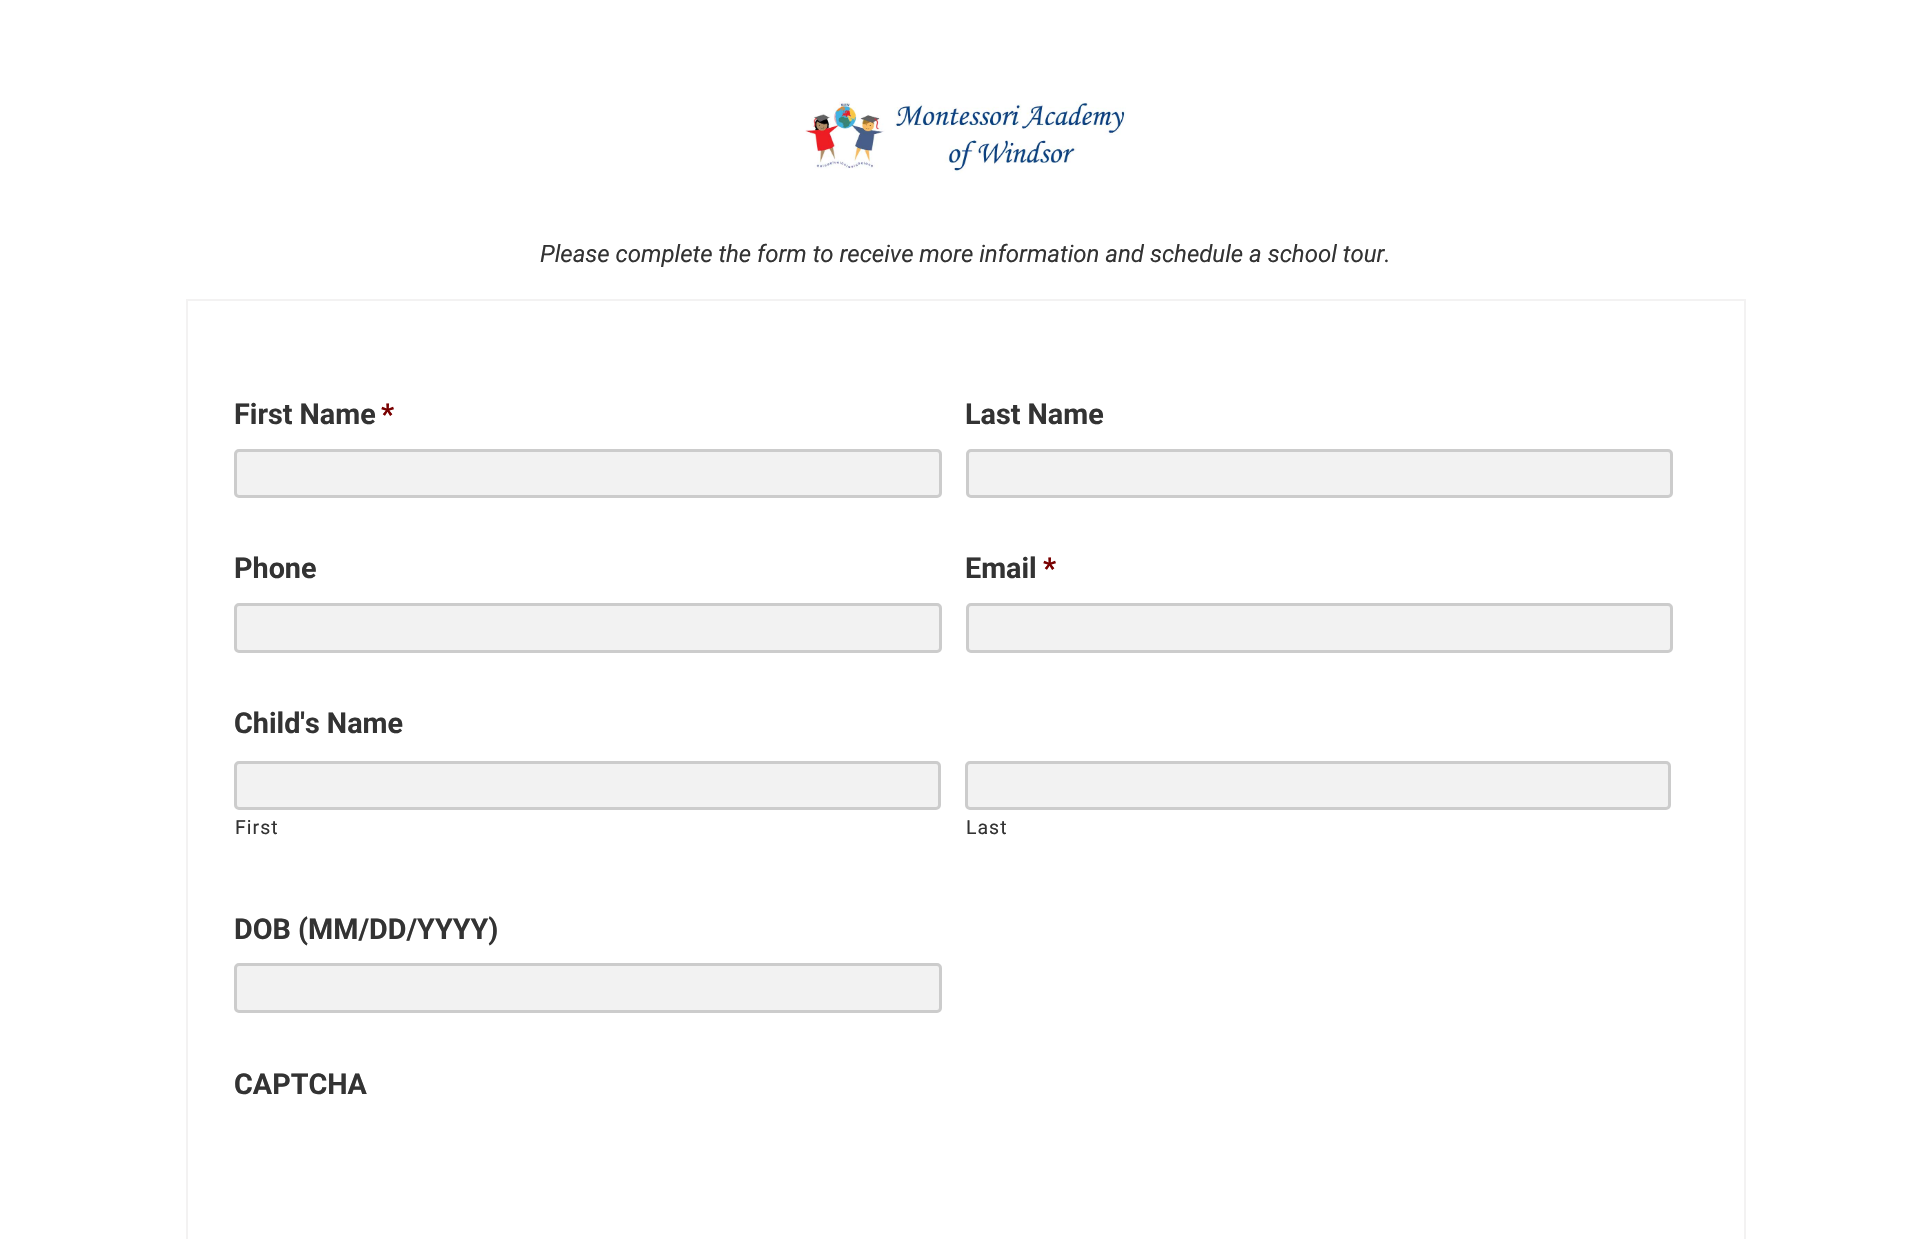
void draw(SkCanvas* canvas) {
    SkPaint paint;
    paint.setAntiAlias(true);
    auto face = [&](const char* family, int weight, float size, bool italic = false) {
        SkFontStyle style(weight, SkFontStyle::kNormal_Width,
            italic ? SkFontStyle::kItalic_Slant : SkFontStyle::kUpright_Slant);
        SkFont result(fontMgr->matchFamilyStyle(family, style), size);
        result.setSubpixel(true);
        return result;
    };
    auto write = [&](const char* s, float x, float y, const SkFont& font, SkColor color) {
        SkPaint ink(SkColor4f::FromColor(color));
        ink.setAntiAlias(true);
        canvas->drawString(s, x, y, font, ink);
    };
    auto writeSpaced = [&](const char* s, float x, float y, const SkFont& font, const SkPaint& ink, float letter, float word) {
        std::vector<SkGlyphID> glyphs(font.countText(s, strlen(s), SkTextEncoding::kUTF8));
        std::vector<float> xs(glyphs.size());
        font.textToGlyphs(s, strlen(s), SkTextEncoding::kUTF8, glyphs);
        font.getXPos(glyphs, xs, x);
        float extra = 0;
        for (size_t i = 0; i < glyphs.size(); i++) {
            xs[i] += extra;
            extra += letter + word * (glyphs[i] == font.unicharToGlyph(' '));
        }
        canvas->drawTextBlob(SkTextBlob::MakeFromPosHGlyphs(glyphs, xs, y, font), 0, 0, ink);
    };
    auto paste = [&](const char* path, float x, float y, float w, float h) {
        auto image = SkImages::DeferredFromEncodedData(SkData::MakeFromFileName(path));
        canvas->drawImageRect(image, SkRect::MakeXYWH(x, y, w, h), SkSamplingOptions());
    };
    canvas->clear(SK_ColorWHITE);
    paste("pic1.png", 805, 101, 321, 73);
    auto kFont1 = face("Roboto", 400, 24, true);
    write("Please complete the form to receive more information and schedule a school tour.", 540, 262, kFont1, SkColorSetRGB(51, 51, 51));
    paint.setStyle(SkPaint::kStroke_Style);
    paint.setStrokeWidth(2);
    paint.setColor(SkColorSetRGB(243, 242, 242));
    canvas->drawRect(SkRect::MakeXYWH(187, 300, 1558, 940), paint);
    auto kFont2 = face("Roboto", 700, 28.75f);
    write("First Name", 234, 424, kFont2, SkColorSetRGB(51, 51, 51));
    write("*", 381, 424, kFont2, SkColorSetRGB(121, 0, 0));
    paint.setStyle(SkPaint::kFill_Style);
    paint.setColor(SkColorSetRGB(242, 242, 242));
    canvas->drawRoundRect(SkRect::MakeXYWH(235.5f, 450.5f, 705, 46), 3.5f, 3.5f, paint);
    paint.setStyle(SkPaint::kStroke_Style);
    paint.setStrokeWidth(3);
    paint.setColor(SkColorSetRGB(204, 204, 204));
    canvas->drawRoundRect(SkRect::MakeXYWH(235.5f, 450.5f, 705, 46), 3.5f, 3.5f, paint);
    write("Last Name", 965, 424, kFont2, SkColorSetRGB(51, 51, 51));
    paint.setStyle(SkPaint::kFill_Style);
    paint.setColor(SkColorSetRGB(242, 242, 242));
    canvas->drawRoundRect(SkRect::MakeXYWH(967.5f, 450.5f, 704, 46), 3.5f, 3.5f, paint);
    paint.setStyle(SkPaint::kStroke_Style);
    paint.setColor(SkColorSetRGB(204, 204, 204));
    canvas->drawRoundRect(SkRect::MakeXYWH(967.5f, 450.5f, 704, 46), 3.5f, 3.5f, paint);
    write("Phone", 234, 578, kFont2, SkColorSetRGB(51, 51, 51));
    paint.setStyle(SkPaint::kFill_Style);
    paint.setColor(SkColorSetRGB(242, 242, 242));
    canvas->drawRoundRect(SkRect::MakeXYWH(235.5f, 604.5f, 705, 47), 3.5f, 3.5f, paint);
    paint.setStyle(SkPaint::kStroke_Style);
    paint.setColor(SkColorSetRGB(204, 204, 204));
    canvas->drawRoundRect(SkRect::MakeXYWH(235.5f, 604.5f, 705, 47), 3.5f, 3.5f, paint);
    write("Email", 965, 578, kFont2, SkColorSetRGB(51, 51, 51));
    write("*", 1043, 578, kFont2, SkColorSetRGB(121, 0, 0));
    paint.setStyle(SkPaint::kFill_Style);
    paint.setColor(SkColorSetRGB(242, 242, 242));
    canvas->drawRoundRect(SkRect::MakeXYWH(967.5f, 604.5f, 704, 47), 3.5f, 3.5f, paint);
    paint.setStyle(SkPaint::kStroke_Style);
    paint.setColor(SkColorSetRGB(204, 204, 204));
    canvas->drawRoundRect(SkRect::MakeXYWH(967.5f, 604.5f, 704, 47), 3.5f, 3.5f, paint);
    write("Child's Name", 234, 733, kFont2, SkColorSetRGB(51, 51, 51));
    paint.setStyle(SkPaint::kFill_Style);
    paint.setColor(SkColorSetRGB(242, 242, 242));
    canvas->drawRoundRect(SkRect::MakeXYWH(235.5f, 762.5f, 704, 46), 3.5f, 3.5f, paint);
    paint.setStyle(SkPaint::kStroke_Style);
    paint.setColor(SkColorSetRGB(204, 204, 204));
    canvas->drawRoundRect(SkRect::MakeXYWH(235.5f, 762.5f, 704, 46), 3.5f, 3.5f, paint);
    auto kFont3 = face("Roboto", 400, 19.5f);
    paint.setStyle(SkPaint::kFill_Style);
    paint.setColor(SkColorSetRGB(51, 51, 51));
    writeSpaced("First", 235, 834, kFont3, paint, 1, 0);
    paint.setColor(SkColorSetRGB(242, 242, 242));
    canvas->drawRoundRect(SkRect::MakeXYWH(966.5f, 762.5f, 703, 46), 3.5f, 3.5f, paint);
    paint.setStyle(SkPaint::kStroke_Style);
    paint.setColor(SkColorSetRGB(204, 204, 204));
    canvas->drawRoundRect(SkRect::MakeXYWH(966.5f, 762.5f, 703, 46), 3.5f, 3.5f, paint);
    paint.setStyle(SkPaint::kFill_Style);
    paint.setColor(SkColorSetRGB(51, 51, 51));
    writeSpaced("Last", 966, 834, kFont3, paint, 1, 0);
    write("DOB (MM/DD/YYYY)", 234, 939, kFont2, SkColorSetRGB(51, 51, 51));
    paint.setColor(SkColorSetRGB(242, 242, 242));
    canvas->drawRoundRect(SkRect::MakeXYWH(235.5f, 964.5f, 705, 47), 3.5f, 3.5f, paint);
    paint.setStyle(SkPaint::kStroke_Style);
    paint.setColor(SkColorSetRGB(204, 204, 204));
    canvas->drawRoundRect(SkRect::MakeXYWH(235.5f, 964.5f, 705, 47), 3.5f, 3.5f, paint);
    write("CAPTCHA", 234, 1094, kFont2, SkColorSetRGB(51, 51, 51));
}
